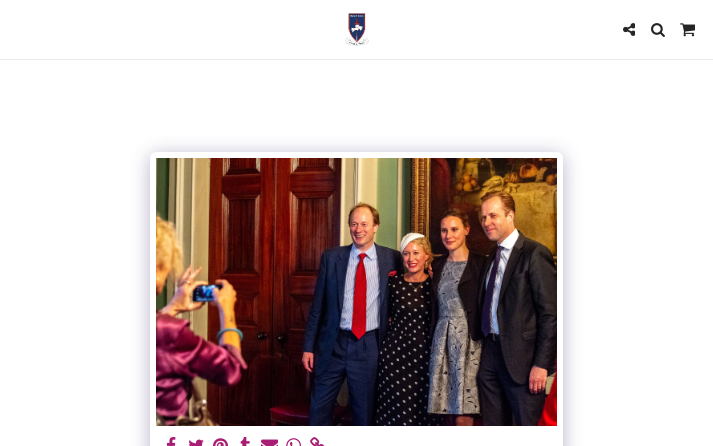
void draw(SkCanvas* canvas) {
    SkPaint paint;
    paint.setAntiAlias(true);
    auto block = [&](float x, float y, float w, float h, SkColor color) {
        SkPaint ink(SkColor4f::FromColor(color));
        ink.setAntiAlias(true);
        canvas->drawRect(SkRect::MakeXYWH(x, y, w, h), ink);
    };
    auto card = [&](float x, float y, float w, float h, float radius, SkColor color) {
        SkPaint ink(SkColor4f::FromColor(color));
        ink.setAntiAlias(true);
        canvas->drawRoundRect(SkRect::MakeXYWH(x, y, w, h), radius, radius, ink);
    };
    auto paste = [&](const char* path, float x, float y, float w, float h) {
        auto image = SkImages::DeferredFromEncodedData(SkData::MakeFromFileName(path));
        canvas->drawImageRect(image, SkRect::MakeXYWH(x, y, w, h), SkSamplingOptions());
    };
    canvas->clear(SK_ColorWHITE);
    block(0, 59, 713, 1, SkColorSetRGB(235, 235, 235));
    paste("pic1.png", 345, 13, 24, 33);
    paste("pic2.png", 623, 23, 12, 13);
    paste("pic3.png", 651, 23, 14, 14);
    paste("pic4.png", 680, 23, 15, 14);
    paint.setColor(SkColorSetARGB(102, 77, 63, 122));
    paint.setMaskFilter(SkMaskFilter::MakeBlur(kNormal_SkBlurStyle, 10));
    canvas->drawRoundRect(SkRect::MakeXYWH(150, 155, 413, 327), 6, 6, paint);
    paint.setMaskFilter(nullptr);
    card(150, 152, 413, 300, 6, SK_ColorWHITE);
    paste("pic5.png", 156, 158, 401, 268);
    paste("pic6.png", 166, 437, 10, 9);
    paste("pic7.png", 189, 439, 15, 7);
    paste("pic8.png", 213, 438, 15, 8);
    paste("pic9.png", 240, 437, 10, 9);
    paste("pic10.png", 261, 439, 17, 7);
    paste("pic11.png", 286, 438, 15, 8);
    paste("pic12.png", 310, 437, 15, 9);
}
